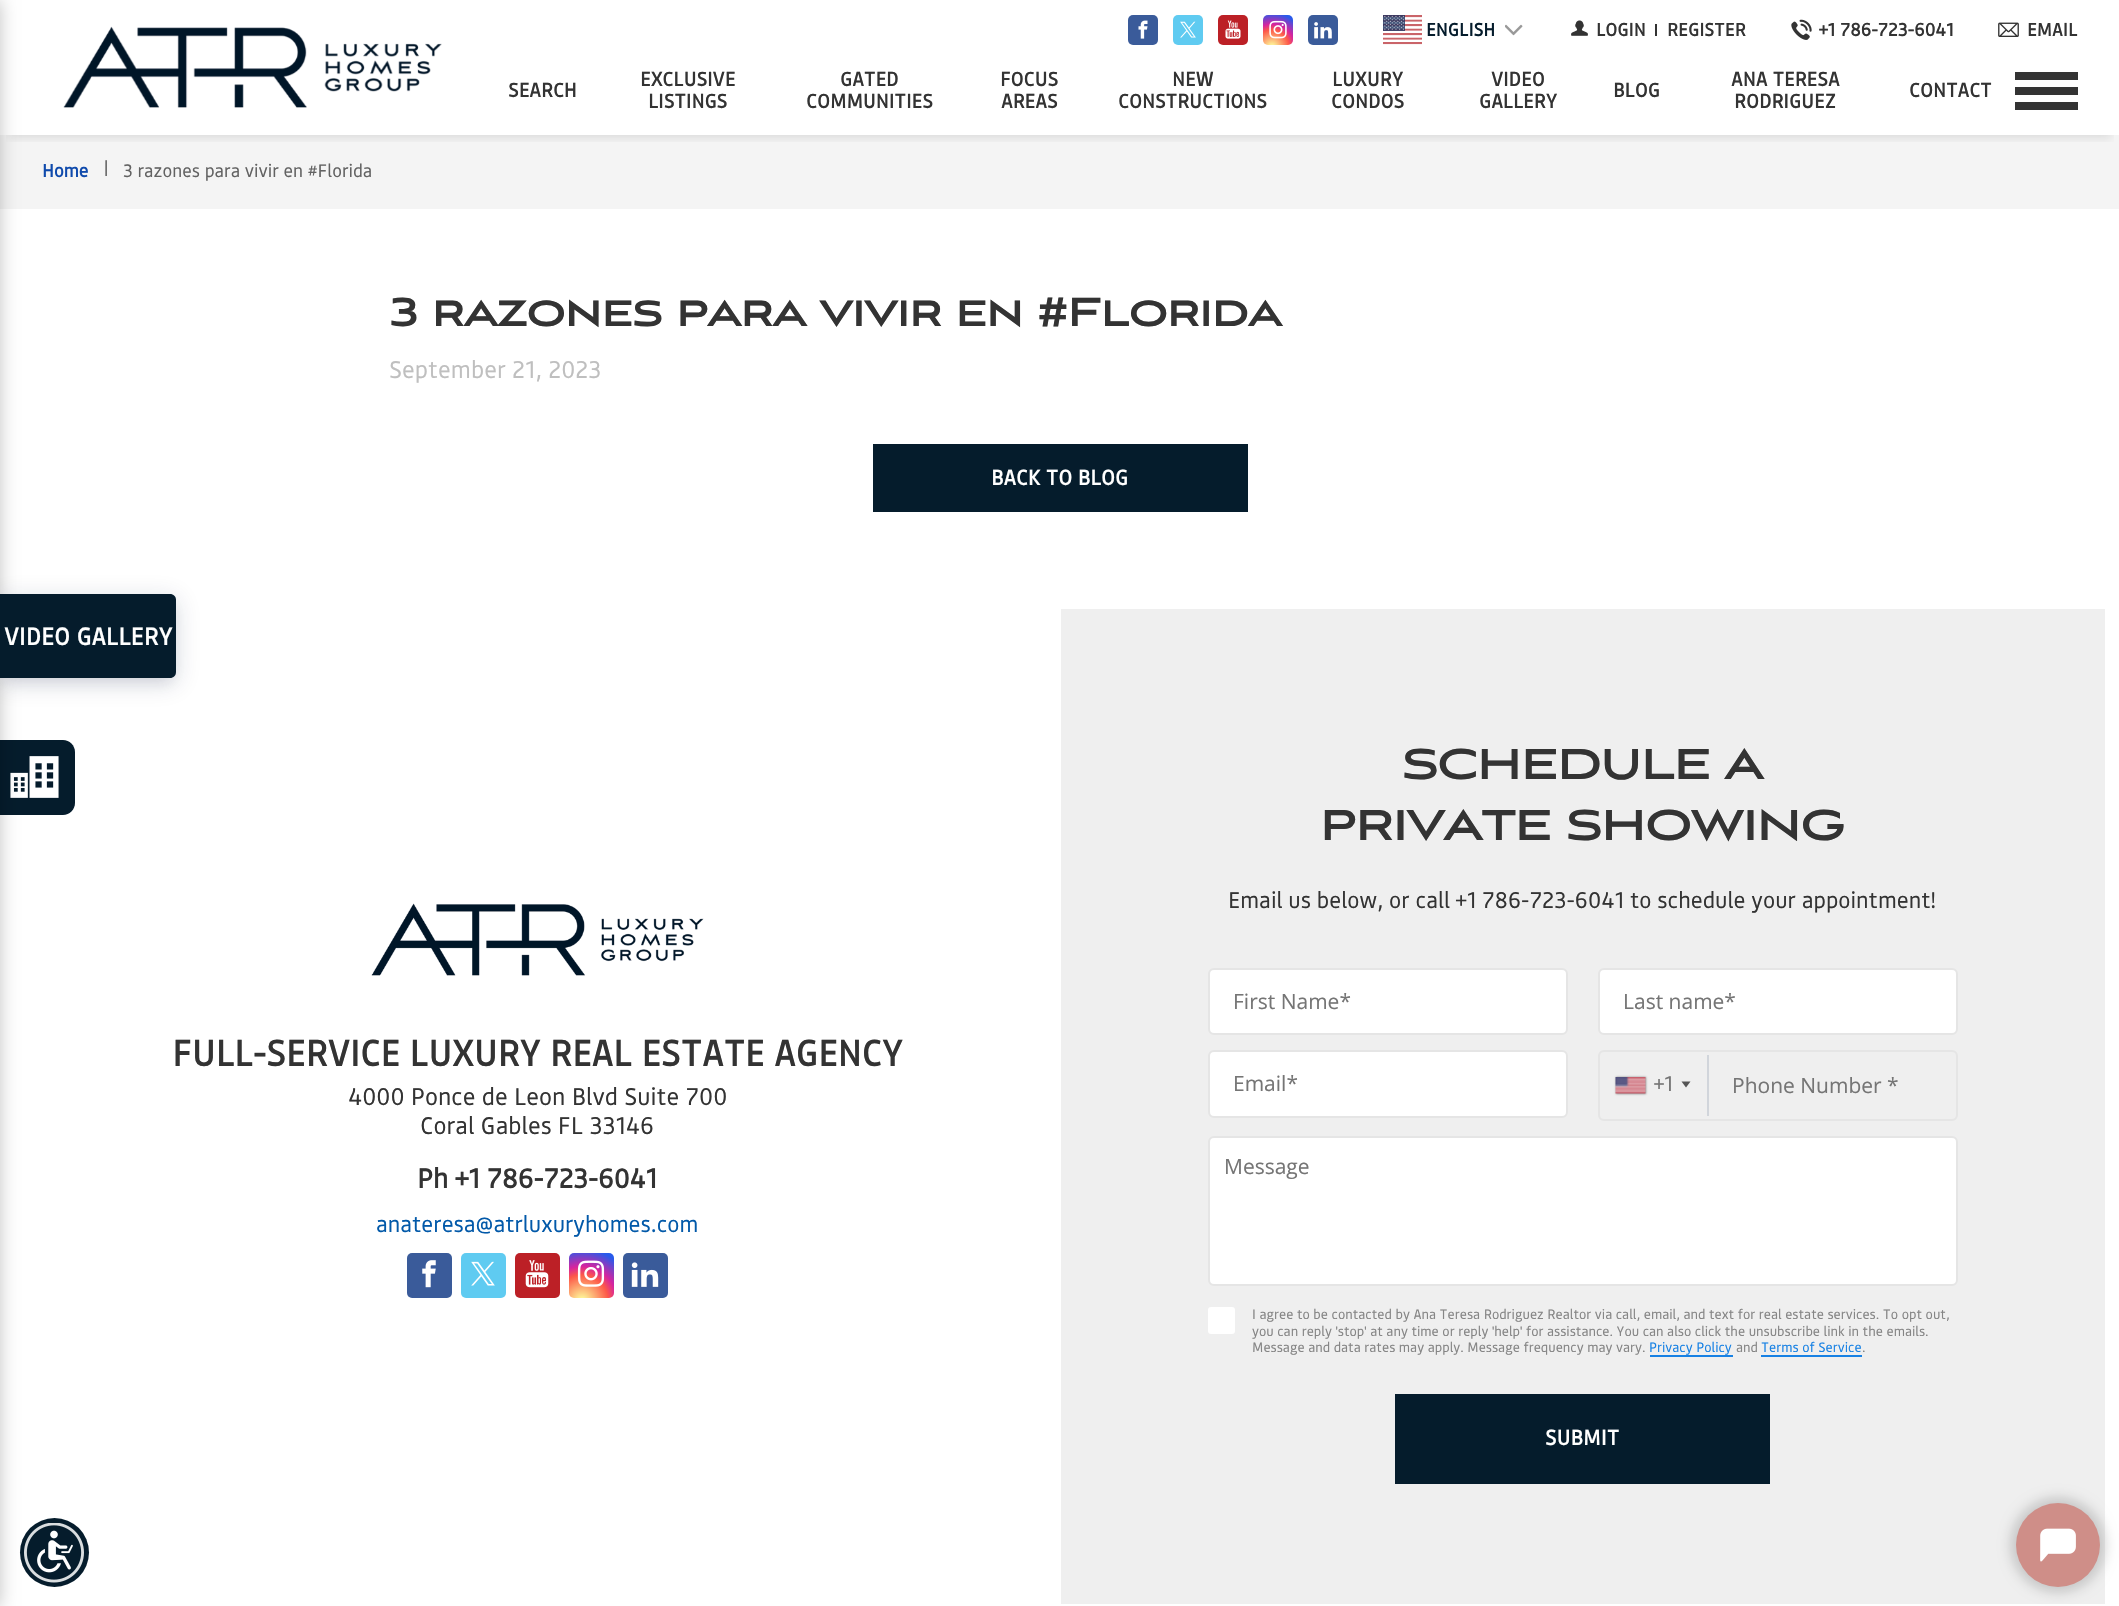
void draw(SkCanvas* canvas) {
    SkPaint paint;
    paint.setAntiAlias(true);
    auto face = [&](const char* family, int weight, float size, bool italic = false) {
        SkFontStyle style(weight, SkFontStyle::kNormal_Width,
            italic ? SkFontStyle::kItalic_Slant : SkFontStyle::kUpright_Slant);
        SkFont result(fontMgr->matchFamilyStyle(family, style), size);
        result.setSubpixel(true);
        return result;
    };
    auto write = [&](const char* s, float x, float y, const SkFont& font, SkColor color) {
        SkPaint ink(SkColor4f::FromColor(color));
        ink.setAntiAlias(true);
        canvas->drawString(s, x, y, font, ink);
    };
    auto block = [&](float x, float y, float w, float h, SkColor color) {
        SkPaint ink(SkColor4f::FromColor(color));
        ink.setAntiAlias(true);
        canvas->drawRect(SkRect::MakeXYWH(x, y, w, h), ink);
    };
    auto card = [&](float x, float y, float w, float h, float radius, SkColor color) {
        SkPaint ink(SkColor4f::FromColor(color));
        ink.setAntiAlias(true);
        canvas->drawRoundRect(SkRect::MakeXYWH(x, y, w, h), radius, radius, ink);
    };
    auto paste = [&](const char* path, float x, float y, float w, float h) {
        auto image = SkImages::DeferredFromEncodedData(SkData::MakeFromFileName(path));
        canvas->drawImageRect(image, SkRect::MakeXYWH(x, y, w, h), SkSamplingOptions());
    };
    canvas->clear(SK_ColorWHITE);
    block(0, 135, 2119, 74, SkColorSetRGB(244, 244, 244));
    canvas->save();
    canvas->clipRect(SkRect::MakeXYWH(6, 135, 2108, 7));
    paint.setColor(SkColorSetARGB(26, 0, 0, 0));
    paint.setMaskFilter(SkMaskFilter::MakeBlur(kNormal_SkBlurStyle, 4.5f));
    canvas->drawRect(SkRect::MakeXYWH(9, 21, 2102, 117), paint);
    paint.setMaskFilter(nullptr);
    canvas->restore();
    card(1128, 15, 30, 30, 5, SkColorSetRGB(58, 91, 154));
    paste("pic1.png", 1138, 20, 10, 19);
    card(1173, 15, 30, 30, 5, SkColorSetRGB(95, 203, 241));
    paste("pic2.png", 1180, 21, 16, 17);
    card(1218, 15, 30, 30, 5, SkColorSetRGB(188, 32, 38));
    paste("pic3.png", 1225, 20, 16, 19);
    {
        const SkColor colors[] = {SkColorSetRGB(253, 244, 151), SkColorSetRGB(253, 244, 151), SkColorSetRGB(253, 89, 73), SkColorSetRGB(214, 36, 159), SkColorSetRGB(40, 90, 235)};
        const float stops[] = {0, 0.05f, 0.45f, 0.6f, 0.9f};
        paint.setShader(SkGradientShader::MakeRadial({1272, 47}, 38, colors, stops, 5, SkTileMode::kClamp));
        paint.setAlpha(255);
    }
    canvas->drawRoundRect(SkRect::MakeXYWH(1263, 15, 30, 30), 5, 5, paint);
    paste("pic4.png", 1269, 20, 18, 19);
    card(1308, 15, 30, 30, 5, SkColorSetRGB(58, 91, 154));
    paste("pic5.png", 1314, 22, 18, 17);
    paste("pic6.png", 1383, 15, 39, 30);
    auto kFont1 = face("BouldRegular", 700, 18);
    write("ENGLISH", 1426, 36, kFont1, SkColorSetRGB(5, 28, 44));
    paste("pic7.png", 1505, 24, 18, 12);
    paste("pic8.png", 1571, 20, 17, 16);
    write("LOGIN", 1596, 36, kFont1, SkColorSetRGB(51, 51, 51));
    block(1655, 24, 2, 12, SkColorSetRGB(51, 51, 51));
    write("REGISTER", 1667, 36, kFont1, SkColorSetRGB(51, 51, 51));
    paste("pic9.png", 1791, 19, 21, 21);
    write("+1 786-723-6041", 1819, 36, kFont1, SkColorSetRGB(51, 51, 51));
    paste("pic10.png", 1998, 22, 21, 15);
    write("EMAIL", 2027, 36, kFont1, SkColorSetRGB(51, 51, 51));
    paste("pic11.png", 63, 26, 379, 82);
    auto kFont2 = face("BouldRegular", 700, 19.5f);
    write("SEARCH", 508, 97, kFont2, SkColorSetRGB(51, 51, 51));
    write("EXCLUSIVE", 640, 86, kFont2, SkColorSetRGB(51, 51, 51));
    write("LISTINGS", 648, 108, kFont2, SkColorSetRGB(51, 51, 51));
    write("GATED", 840, 86, kFont2, SkColorSetRGB(51, 51, 51));
    write("COMMUNITIES", 806, 108, kFont2, SkColorSetRGB(51, 51, 51));
    write("FOCUS", 1000, 86, kFont2, SkColorSetRGB(51, 51, 51));
    write("AREAS", 1001, 108, kFont2, SkColorSetRGB(51, 51, 51));
    write("NEW", 1172, 86, kFont2, SkColorSetRGB(51, 51, 51));
    write("CONSTRUCTIONS", 1118, 108, kFont2, SkColorSetRGB(51, 51, 51));
    write("LUXURY", 1332, 86, kFont2, SkColorSetRGB(51, 51, 51));
    write("CONDOS", 1331, 108, kFont2, SkColorSetRGB(51, 51, 51));
    write("VIDEO", 1491, 86, kFont2, SkColorSetRGB(51, 51, 51));
    write("GALLERY", 1479, 108, kFont2, SkColorSetRGB(51, 51, 51));
    write("BLOG", 1613, 97, kFont2, SkColorSetRGB(51, 51, 51));
    write("ANA TERESA", 1731, 86, kFont2, SkColorSetRGB(51, 51, 51));
    write("RODRIGUEZ", 1734, 108, kFont2, SkColorSetRGB(51, 51, 51));
    write("CONTACT", 1909, 97, kFont2, SkColorSetRGB(51, 51, 51));
    block(2015, 72, 63, 8, SkColorSetRGB(51, 51, 51));
    block(2015, 87, 63, 8, SkColorSetRGB(51, 51, 51));
    block(2015, 102, 63, 8, SkColorSetRGB(51, 51, 51));
    write("Home", 42, 177, kFont1, SkColorSetRGB(15, 74, 172));
    auto kFont3 = face("BouldRegular", 400, 18);
    write("|", 104, 174, kFont3, SkColorSetRGB(98, 98, 98));
    write("3 razones para vivir en #Florida", 123, 177, kFont3, SkColorSetRGB(98, 98, 98));
    auto kFont4 = face("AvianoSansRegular", 700, 48);
    write("3 razones para vivir en #Florida", 389, 326, kFont4, SkColorSetRGB(51, 51, 51));
    auto kFont5 = face("BouldRegular", 400, 24);
    write("September 21, 2023", 389, 378, kFont5, SkColorSetRGB(191, 191, 191));
    block(873, 444, 375, 68, SkColorSetRGB(5, 28, 44));
    auto kFont6 = face("BouldRegular", 700, 21);
    write("BACK TO BLOG", 991, 485, kFont6, SK_ColorWHITE);
    paint.setShader(nullptr);
    paint.setColor(SkColorSetRGB(5, 28, 44));
    canvas->drawPath(SkPathBuilder().moveTo(0, 740).lineTo(63, 740).cubicTo(69.5f, 740, 75, 745.5f, 75, 752).lineTo(75, 803).cubicTo(75, 809.5f, 69.5f, 815, 63, 815).lineTo(0, 815).close().detach(), paint);
    paste("pic12.png", 10, 756, 49, 42);
    canvas->drawCircle(54.5f, 1552.5f, 34.5f, paint);
    paste("pic20.png", 24, 1523, 60, 60);
    paint.setColor(SkColorSetARGB(59, 0, 0, 0));
    paint.setMaskFilter(SkMaskFilter::MakeBlur(kNormal_SkBlurStyle, 9));
    canvas->drawRect(SkRect::MakeXYWH(-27, 0, 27, 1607), paint);
    paint.setMaskFilter(nullptr);
    paint.setColor(SkColorSetARGB(31, 29, 17, 51));
    paint.setMaskFilter(SkMaskFilter::MakeBlur(kNormal_SkBlurStyle, 7.5f));
    canvas->drawRoundRect(SkRect::MakeXYWH(5, 606, 166, 75), 1.5f, 1.5f, paint);
    paint.setMaskFilter(nullptr);
    paint.setColor(SkColorSetARGB(31, 9, 32, 77));
    paint.setMaskFilter(SkMaskFilter::MakeBlur(kNormal_SkBlurStyle, 12));
    canvas->drawRoundRect(SkRect::MakeXYWH(-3, 596, 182, 90), 9, 9, paint);
    paint.setMaskFilter(nullptr);
    paint.setColor(SkColorSetRGB(5, 28, 44));
    canvas->drawPath(SkPathBuilder().moveTo(0, 594).lineTo(170, 594).cubicTo(173.5f, 594, 176, 596.5f, 176, 600).lineTo(176, 672).cubicTo(176, 675.5f, 173.5f, 678, 170, 678).lineTo(0, 678).close().detach(), paint);
    auto kFont7 = face("BouldRegular", 700, 24);
    write("VIDEO GALLERY", 4, 645, kFont7, SK_ColorWHITE);
    paste("pic13.png", 371, 903, 333, 73);
    auto kFont8 = face("BouldRegular", 700, 36);
    write("FULL-SERVICE LUXURY REAL ESTATE AGENCY", 172, 1066, kFont8, SkColorSetRGB(51, 51, 51));
    write("4000 Ponce de Leon Blvd Suite 700", 348, 1105, kFont5, SkColorSetRGB(51, 51, 51));
    write("Coral Gables FL 33146", 420, 1134, kFont5, SkColorSetRGB(51, 51, 51));
    auto kFont9 = face("BouldRegular", 700, 27);
    write("Ph +1 786-723-6041", 417, 1188, kFont9, SkColorSetRGB(51, 51, 51));
    auto kFont10 = face("BouldRegular", 400, 22.5f);
    write("anateresa@atrluxuryhomes.com", 376, 1232, kFont10, SkColorSetRGB(2, 89, 169));
    card(407, 1253, 45, 45, 5, SkColorSetRGB(58, 91, 154));
    paste("pic14.png", 422, 1260, 14, 28);
    card(461, 1253, 45, 45, 5, SkColorSetRGB(95, 203, 241));
    paste("pic15.png", 471, 1261, 24, 25);
    card(515, 1253, 45, 45, 5, SkColorSetRGB(188, 32, 38));
    paste("pic16.png", 525, 1260, 24, 28);
    {
        const SkColor colors[] = {SkColorSetRGB(253, 244, 151), SkColorSetRGB(253, 244, 151), SkColorSetRGB(253, 89, 73), SkColorSetRGB(214, 36, 159), SkColorSetRGB(40, 90, 235)};
        const float stops[] = {0, 0.05f, 0.45f, 0.6f, 0.9f};
        paint.setShader(SkGradientShader::MakeRadial({582, 1301}, 58, colors, stops, 5, SkTileMode::kClamp));
        paint.setAlpha(255);
    }
    canvas->drawRoundRect(SkRect::MakeXYWH(569, 1253, 45, 45), 5, 5, paint);
    paste("pic17.png", 577, 1260, 28, 27);
    card(623, 1253, 45, 45, 5, SkColorSetRGB(58, 91, 154));
    paste("pic18.png", 631, 1262, 28, 25);
    block(1061, 609, 1044, 995, SkColorSetRGB(239, 239, 239));
    auto kFont11 = face("AvianoSansRegular", 700, 51);
    write("SCHEDULE A", 1402, 779, kFont11, SkColorSetRGB(51, 51, 51));
    write("PRIVATE SHOWING", 1320, 840, kFont11, SkColorSetRGB(51, 51, 51));
    write("Email us below, or call +1 786-723-6041 to schedule your appointment!", 1228, 908, kFont10, SkColorSetRGB(51, 51, 51));
    paint.setShader(nullptr);
    paint.setColor(SK_ColorWHITE);
    canvas->drawRoundRect(SkRect::MakeXYWH(1209, 969, 358, 65), 5, 5, paint);
    paint.setStyle(SkPaint::kStroke_Style);
    paint.setStrokeWidth(2);
    paint.setColor(SkColorSetRGB(229, 229, 229));
    canvas->drawRoundRect(SkRect::MakeXYWH(1209, 969, 358, 65), 5, 5, paint);
    auto kFont12 = face("Open Sans", 400, 21);
    write("First Name*", 1233, 1009, kFont12, SkColorSetRGB(117, 117, 117));
    paint.setStyle(SkPaint::kFill_Style);
    paint.setColor(SK_ColorWHITE);
    canvas->drawRoundRect(SkRect::MakeXYWH(1599, 969, 358, 65), 5, 5, paint);
    paint.setStyle(SkPaint::kStroke_Style);
    paint.setColor(SkColorSetRGB(229, 229, 229));
    canvas->drawRoundRect(SkRect::MakeXYWH(1599, 969, 358, 65), 5, 5, paint);
    write("Last name*", 1623, 1009, kFont12, SkColorSetRGB(117, 117, 117));
    paint.setStyle(SkPaint::kFill_Style);
    paint.setColor(SK_ColorWHITE);
    canvas->drawRoundRect(SkRect::MakeXYWH(1209, 1051, 358, 66), 5, 5, paint);
    paint.setStyle(SkPaint::kStroke_Style);
    paint.setColor(SkColorSetRGB(229, 229, 229));
    canvas->drawRoundRect(SkRect::MakeXYWH(1209, 1051, 358, 66), 5, 5, paint);
    write("Email*", 1233, 1091, kFont12, SkColorSetRGB(117, 117, 117));
    canvas->drawRoundRect(SkRect::MakeXYWH(1599, 1051, 358, 69), 5, 5, paint);
    paint.setStyle(SkPaint::kFill_Style);
    paint.setColor(SkColorSetRGB(136, 136, 136));
    paint.setMaskFilter(SkMaskFilter::MakeBlur(kNormal_SkBlurStyle, 1));
    canvas->drawRect(SkRect::MakeXYWH(1616, 1077, 30, 17), paint);
    paint.setMaskFilter(nullptr);
    paste("pic19.png", 1615, 1077, 31, 17);
    auto kFont13 = face("BouldRegular", 400, 21);
    write("+1", 1654, 1091, kFont13, SkColorSetRGB(117, 117, 117));
    paint.setColor(SkColorSetRGB(85, 85, 85));
    canvas->drawPath(SkPathBuilder().moveTo(1681.5f, 1081.5f).lineTo(1690.5f, 1081.5f).lineTo(1686, 1087.5f).close().detach(), paint);
    block(1707, 1055, 2, 61, SkColorSetRGB(209, 213, 219));
    write("Phone Number *", 1732, 1093, kFont12, SkColorSetRGB(117, 117, 117));
    paint.setColor(SK_ColorWHITE);
    canvas->drawRoundRect(SkRect::MakeXYWH(1209, 1137, 748, 148), 5, 5, paint);
    paint.setStyle(SkPaint::kStroke_Style);
    paint.setColor(SkColorSetRGB(229, 229, 229));
    canvas->drawRoundRect(SkRect::MakeXYWH(1209, 1137, 748, 148), 5, 5, paint);
    write("Message", 1224, 1174, kFont12, SkColorSetRGB(117, 117, 117));
    card(1208, 1307, 27, 27, 3, SK_ColorWHITE);
    auto kFont14 = face("BouldRegular", 400, 13.5f);
    write("I agree to be contacted by Ana Teresa Rodriguez Realtor via call, email, and text for real estate services. To opt out,", 1252, 1319, kFont14, SkColorSetRGB(133, 133, 133));
    write("you can reply 'stop' at any time or reply 'help' for assistance. You can also click the unsubscribe link in the emails.", 1252, 1336, kFont14, SkColorSetRGB(133, 133, 133));
    write("Message and data rates may apply. Message frequency may vary.", 1252, 1352, kFont14, SkColorSetRGB(133, 133, 133));
    write("Privacy Policy", 1649, 1352, kFont14, SkColorSetRGB(23, 129, 228));
    block(1650, 1355, 83, 2, SkColorSetRGB(23, 129, 228));
    write("and", 1736, 1352, kFont14, SkColorSetRGB(133, 133, 133));
    write("Terms of Service", 1761, 1352, kFont14, SkColorSetRGB(23, 129, 228));
    block(1761, 1355, 101, 2, SkColorSetRGB(23, 129, 228));
    write(".", 1862, 1352, kFont14, SkColorSetRGB(133, 133, 133));
    block(1395, 1394, 375, 90, SkColorSetRGB(5, 28, 44));
    write("SUBMIT", 1545, 1445, kFont6, SK_ColorWHITE);
    paint.setStyle(SkPaint::kFill_Style);
    paint.setColor(SkColorSetARGB(41, 0, 0, 0));
    paint.setMaskFilter(SkMaskFilter::MakeBlur(kNormal_SkBlurStyle, 6));
    canvas->drawRoundRect(SkRect::MakeXYWH(2010, 1497, 96, 96), 48, 48, paint);
    paint.setMaskFilter(nullptr);
    paint.setColor(SkColorSetRGB(207, 142, 136));
    canvas->drawCircle(2058, 1545, 42, paint);
    paste("pic21.png", 2040, 1528, 36, 34);
}
